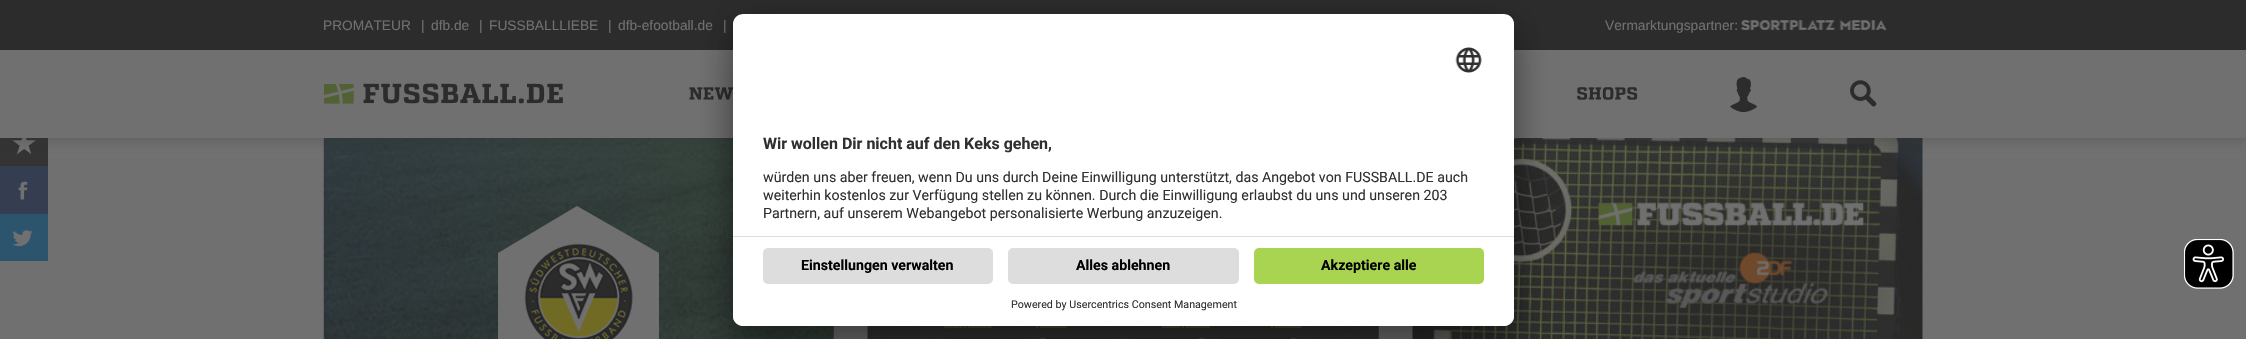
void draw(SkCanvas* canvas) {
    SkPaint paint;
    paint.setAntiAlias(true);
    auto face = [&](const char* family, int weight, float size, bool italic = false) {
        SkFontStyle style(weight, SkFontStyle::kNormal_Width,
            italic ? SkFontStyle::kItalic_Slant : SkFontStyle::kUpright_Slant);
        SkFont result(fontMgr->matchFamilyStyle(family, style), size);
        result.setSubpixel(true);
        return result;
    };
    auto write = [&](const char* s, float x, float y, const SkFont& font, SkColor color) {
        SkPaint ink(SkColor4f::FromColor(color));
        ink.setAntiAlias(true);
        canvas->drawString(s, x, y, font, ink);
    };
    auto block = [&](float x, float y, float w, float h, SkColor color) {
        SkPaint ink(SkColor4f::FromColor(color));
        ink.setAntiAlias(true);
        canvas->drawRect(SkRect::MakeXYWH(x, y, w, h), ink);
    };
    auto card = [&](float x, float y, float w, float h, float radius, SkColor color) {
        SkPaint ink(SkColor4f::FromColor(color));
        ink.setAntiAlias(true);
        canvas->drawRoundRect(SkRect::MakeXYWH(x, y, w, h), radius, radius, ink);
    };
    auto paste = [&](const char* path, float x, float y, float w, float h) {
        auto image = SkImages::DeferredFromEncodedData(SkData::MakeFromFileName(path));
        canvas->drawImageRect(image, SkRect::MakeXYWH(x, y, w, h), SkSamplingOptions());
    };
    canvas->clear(SkColorSetRGB(112, 112, 112));
    block(0, 138, 48, 28, SkColorSetRGB(51, 51, 51));
    paste("pic8.png", 12, 138, 24, 17);
    paste("pic12.png", 323, 138, 511, 201);
    paste("pic15.png", 1412, 138, 511, 201);
    paint.setColor(SkColorSetARGB(77, 51, 51, 51));
    paint.setMaskFilter(SkMaskFilter::MakeBlur(kNormal_SkBlurStyle, 6));
    canvas->drawRect(SkRect::MakeXYWH(3, 3, 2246, 137), paint);
    paint.setMaskFilter(nullptr);
    block(0, 50, 2246, 88, SkColorSetRGB(112, 112, 112));
    block(0, 0, 2246, 50, SkColorSetRGB(44, 44, 44));
    auto kFont1 = face("Liberation Sans", 400, 13.75f);
    write("PROMATEUR", 323, 30, kFont1, SkColorSetRGB(112, 112, 112));
    write("|", 421, 30, kFont1, SkColorSetRGB(112, 112, 112));
    write("dfb.de", 431, 30, kFont1, SkColorSetRGB(112, 112, 112));
    write("|", 479, 30, kFont1, SkColorSetRGB(112, 112, 112));
    write("FUSSBALLLIEBE", 489, 30, kFont1, SkColorSetRGB(112, 112, 112));
    write("|", 608, 30, kFont1, SkColorSetRGB(112, 112, 112));
    write("dfb-efootball.de", 618, 30, kFont1, SkColorSetRGB(112, 112, 112));
    write("|", 723, 30, kFont1, SkColorSetRGB(112, 112, 112));
    write("Vermarktungspartner:", 1605, 30, kFont1, SkColorSetRGB(112, 112, 112));
    paste("pic1.png", 1741, 20, 146, 10);
    paste("pic2.png", 324, 84, 30, 20);
    paste("pic3.png", 363, 83, 200, 21);
    paste("pic4.png", 689, 87, 44, 13);
    paste("pic5.png", 1577, 87, 61, 13);
    paste("pic6.png", 1730, 77, 28, 36);
    paste("pic7.png", 1850, 80, 27, 27);
    block(0, 166, 48, 48, SkColorSetRGB(53, 62, 81));
    paste("pic9.png", 18, 181, 10, 19);
    block(0, 214, 48, 47, SkColorSetRGB(44, 84, 108));
    paste("pic10.png", 12, 230, 21, 17);
    paste("pic14.png", 867, 326, 512, 13);
    paint.setColor(SkColorSetARGB(77, 0, 0, 0));
    paint.setMaskFilter(SkMaskFilter::MakeBlur(kNormal_SkBlurStyle, 17.5f));
    canvas->drawRoundRect(SkRect::MakeXYWH(733, 39, 781, 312), 10, 10, paint);
    paint.setMaskFilter(nullptr);
    paint.setColor(SkColorSetARGB(56, 0, 0, 0));
    paint.setMaskFilter(SkMaskFilter::MakeBlur(kNormal_SkBlurStyle, 16));
    canvas->drawRoundRect(SkRect::MakeXYWH(733, 20, 781, 313), 10, 10, paint);
    paint.setMaskFilter(nullptr);
    card(733, 14, 781, 312, 10, SK_ColorWHITE);
    canvas->save();
    canvas->clipPath(SkPathBuilder().moveTo(743, 14).lineTo(1504, 14).cubicTo(1509.5f, 14, 1514, 18.5f, 1514, 24).lineTo(1514, 316).cubicTo(1514, 321.5f, 1509.5f, 326, 1504, 326).lineTo(743, 326).cubicTo(737.5f, 326, 733, 321.5f, 733, 316).lineTo(733, 24).cubicTo(733, 18.5f, 737.5f, 14, 743, 14).close().detach(), true);
    canvas->clipPath(SkPathBuilder().moveTo(743, 14).lineTo(1504, 14).cubicTo(1509.5f, 14, 1514, 18.5f, 1514, 24).lineTo(1514, 236).lineTo(733, 236).lineTo(733, 24).cubicTo(733, 18.5f, 737.5f, 14, 743, 14).close().detach(), true);
    block(733, 15, 781, 221, SK_ColorWHITE);
    canvas->restore();
    paste("pic11.png", 1455, 47, 27, 26);
    auto kFont2 = face("Roboto", 700, 16);
    write("Wir wollen Dir nicht auf den Keks gehen,", 763, 149, kFont2, SkColorSetRGB(48, 48, 48));
    auto kFont3 = face("Roboto", 400, 14.2f);
    write("würden uns aber freuen, wenn Du uns durch Deine Einwilligung unterstützt, das Angebot von FUSSBALL.DE auch", 763, 182, kFont3, SkColorSetRGB(48, 48, 48));
    write("weiterhin kostenlos zur Verfügung stellen zu können. Durch die Einwilligung erlaubst du uns und unseren 203", 763, 200, kFont3, SkColorSetRGB(48, 48, 48));
    write("Partnern, auf unserem Webangebot personalisierte Werbung anzuzeigen.", 763, 218, kFont3, SkColorSetRGB(48, 48, 48));
    paint.setColor(SK_ColorWHITE);
    canvas->drawPath(SkPathBuilder().moveTo(733, 236).lineTo(1514, 236).lineTo(1514, 316).cubicTo(1514, 321.5f, 1509.5f, 326, 1504, 326).lineTo(743, 326).cubicTo(737.5f, 326, 733, 321.5f, 733, 316).close().detach(), paint);
    block(733, 236, 781, 1, SkColorSetRGB(221, 221, 221));
    card(763, 248, 230, 36, 5, SkColorSetRGB(221, 221, 221));
    auto kFont4 = face("Roboto", 700, 14.2f);
    write("Einstellungen verwalten", 801, 270, kFont4, SK_ColorBLACK);
    card(1008, 248, 231, 36, 5, SkColorSetRGB(221, 221, 221));
    write("Alles ablehnen", 1076, 270, kFont4, SK_ColorBLACK);
    card(1254, 248, 230, 36, 5, SkColorSetRGB(168, 212, 81));
    write("Akzeptiere alle", 1321, 270, kFont4, SK_ColorBLACK);
    auto kFont5 = face("Roboto", 400, 10.7f);
    write("Powered by Usercentrics Consent Management", 1011, 308, kFont5, SkColorSetRGB(48, 48, 48));
    paint.setColor(SkColorSetRGB(112, 112, 112));
    canvas->drawPath(SkPathBuilder().moveTo(659, 253).lineTo(659, 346).lineTo(577, 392).lineTo(498, 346).lineTo(498, 253).lineTo(577, 206).close().detach(), paint);
    paste("pic13.png", 524, 243, 109, 96);
    paste("pic16.png", 2184, 239, 50, 50);
}
